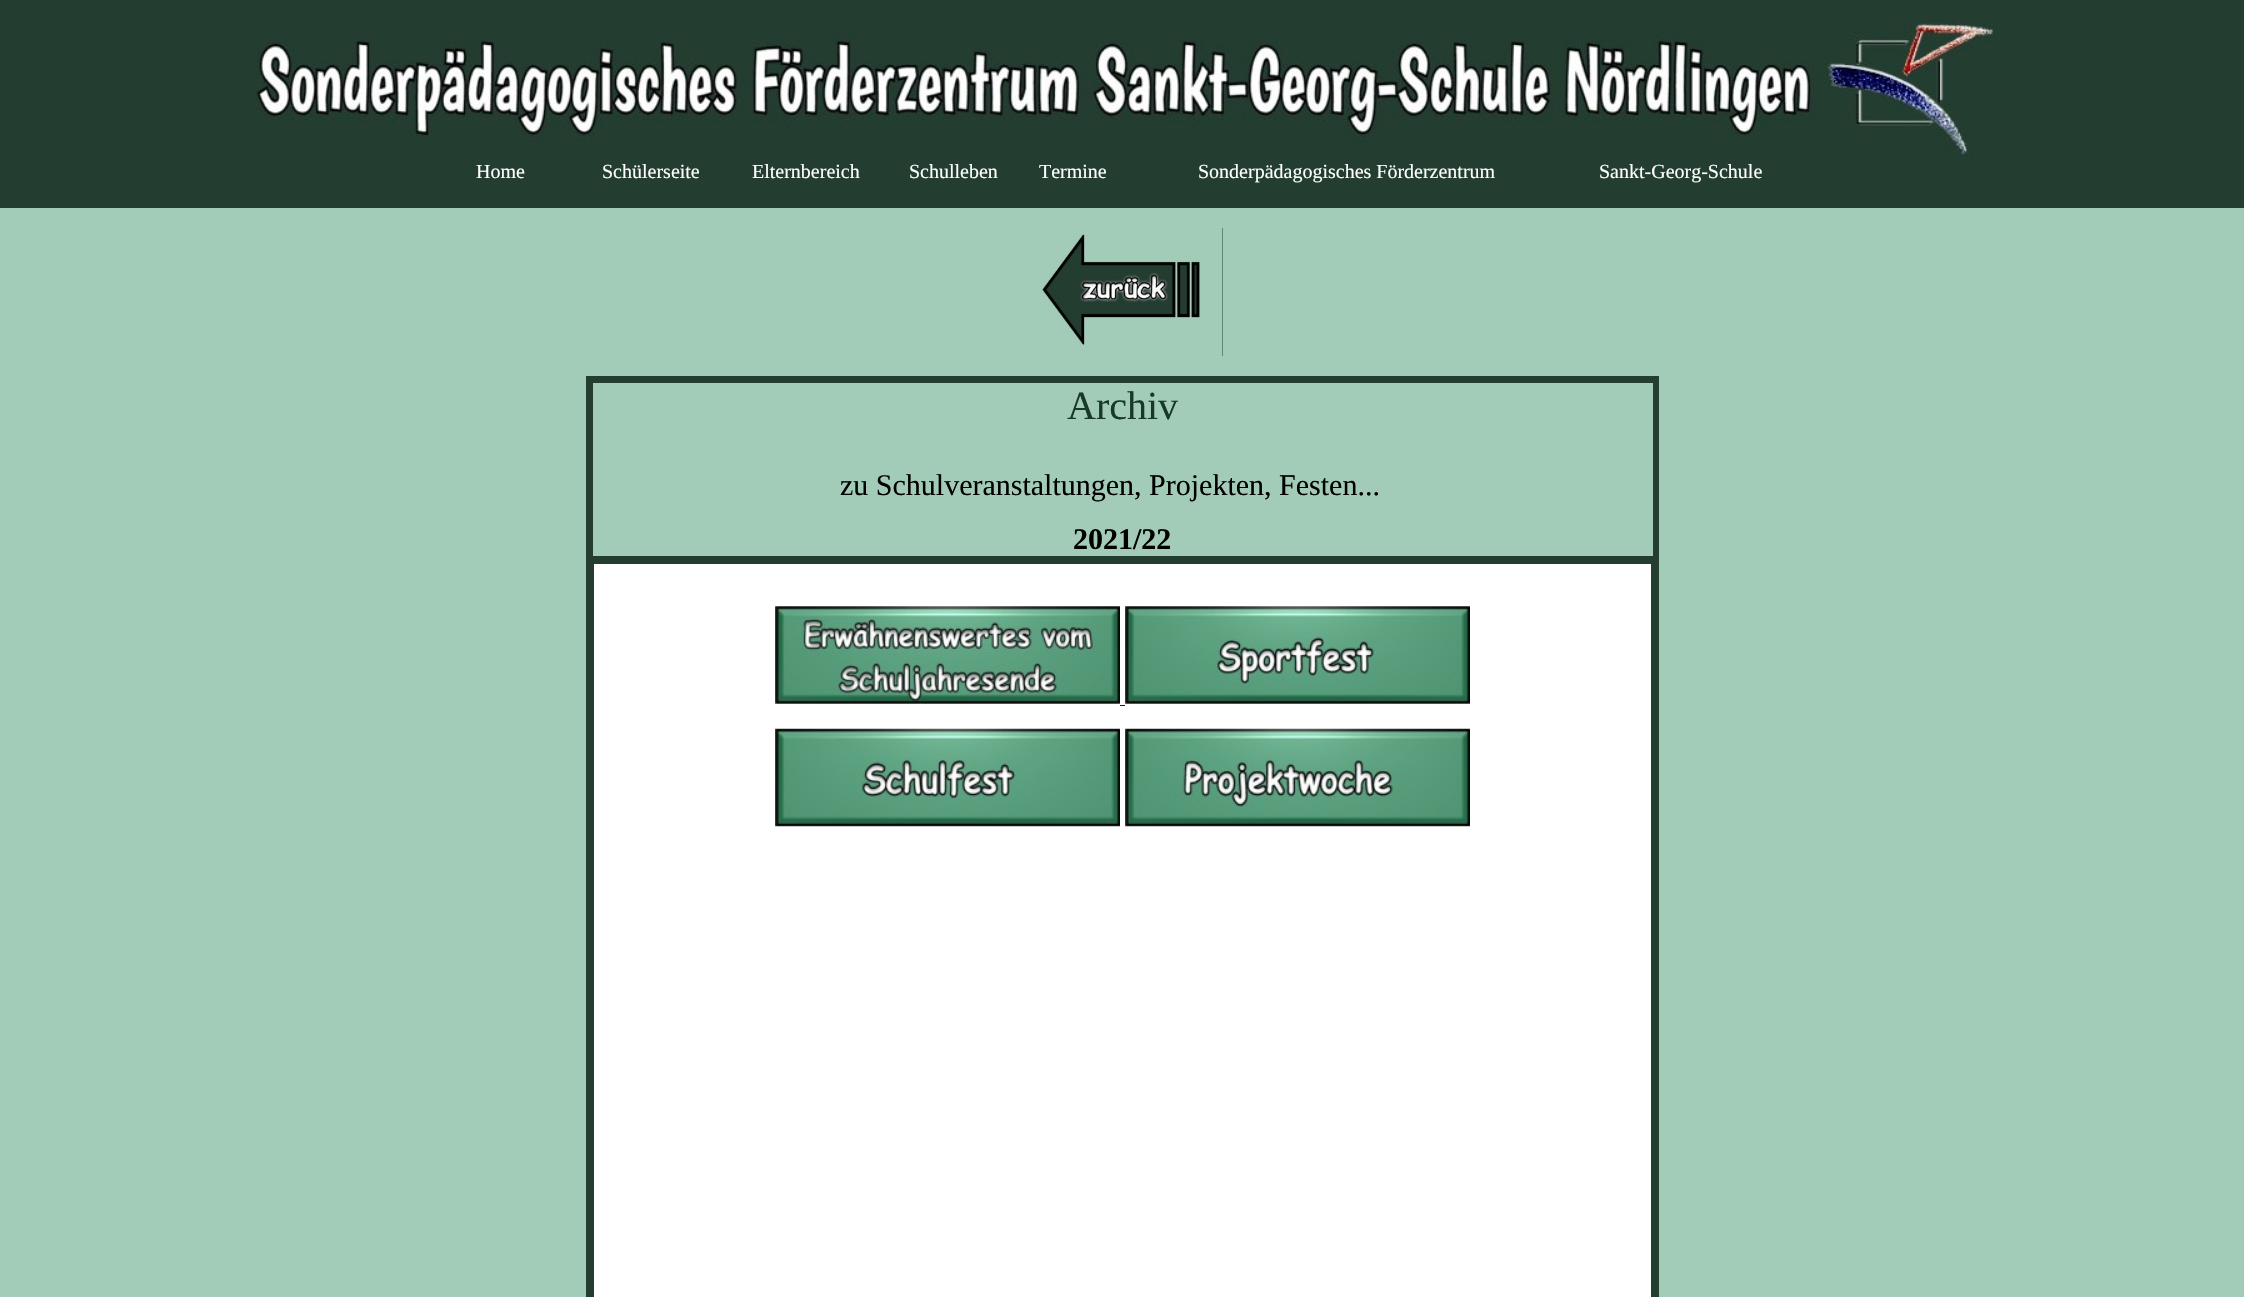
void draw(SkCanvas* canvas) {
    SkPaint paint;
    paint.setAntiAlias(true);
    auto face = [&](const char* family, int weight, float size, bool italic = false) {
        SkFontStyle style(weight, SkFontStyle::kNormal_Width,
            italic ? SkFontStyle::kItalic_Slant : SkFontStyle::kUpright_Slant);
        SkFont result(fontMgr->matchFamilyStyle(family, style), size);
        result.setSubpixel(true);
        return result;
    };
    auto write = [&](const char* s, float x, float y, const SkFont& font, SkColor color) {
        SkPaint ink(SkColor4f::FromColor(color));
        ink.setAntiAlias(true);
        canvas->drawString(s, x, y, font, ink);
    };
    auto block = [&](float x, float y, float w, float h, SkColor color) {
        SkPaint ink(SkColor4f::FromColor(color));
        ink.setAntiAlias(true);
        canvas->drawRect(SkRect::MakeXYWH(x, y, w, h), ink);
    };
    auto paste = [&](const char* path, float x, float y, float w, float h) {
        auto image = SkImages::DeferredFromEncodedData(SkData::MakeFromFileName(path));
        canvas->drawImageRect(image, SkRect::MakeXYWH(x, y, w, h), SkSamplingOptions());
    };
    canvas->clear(SkColorSetRGB(162, 204, 184));
    block(0, 0, 2244, 208, SkColorSetRGB(35, 61, 48));
    paste("pic1.png", 254, 21, 1739, 135);
    auto kFont1 = face("Liberation Serif", 400, 20);
    write("Home", 476, 178, kFont1, SK_ColorWHITE);
    write("Schülerseite", 602, 178, kFont1, SK_ColorWHITE);
    write("Elternbereich", 752, 178, kFont1, SK_ColorWHITE);
    write("Schulleben", 909, 178, kFont1, SK_ColorWHITE);
    write("Termine", 1039, 178, kFont1, SK_ColorWHITE);
    write("Sonderpädagogisches Förderzentrum", 1198, 178, kFont1, SK_ColorWHITE);
    write("Sankt-Georg-Schule", 1599, 178, kFont1, SK_ColorWHITE);
    block(1222, 228, 1, 128, SkColorSetRGB(35, 62, 49));
    paste("pic2.png", 1023, 228, 200, 128);
    block(586, 376, 1073, 7, SkColorSetRGB(35, 62, 49));
    block(1653, 376, 6, 180, SkColorSetRGB(35, 62, 49));
    block(586, 376, 7, 180, SkColorSetRGB(35, 62, 49));
    auto kFont2 = face("Liberation Serif", 400, 40);
    write("Archiv", 1067, 419, kFont2, SkColorSetRGB(24, 57, 38));
    auto kFont3 = face("Liberation Serif", 400, 30);
    write("zu Schulveranstaltungen, Projekten, Festen...", 840, 495, kFont3, SK_ColorBLACK);
    auto kFont4 = face("Liberation Serif", 700, 30);
    write("2021/22", 1073, 549, kFont4, SK_ColorBLACK);
    block(594, 564, 1057, 733, SK_ColorWHITE);
    block(586, 556, 1073, 8, SkColorSetRGB(35, 61, 48));
    block(1651, 556, 8, 741, SkColorSetRGB(35, 61, 48));
    block(586, 556, 8, 741, SkColorSetRGB(35, 61, 48));
    paste("pic3.png", 775, 606, 345, 98);
    paste("pic4.png", 1125, 606, 345, 98);
    block(1120, 705, 5, 1, SkColorSetRGB(0, 0, 238));
    paste("pic5.png", 775, 728, 345, 99);
    paste("pic6.png", 1125, 728, 345, 99);
}
